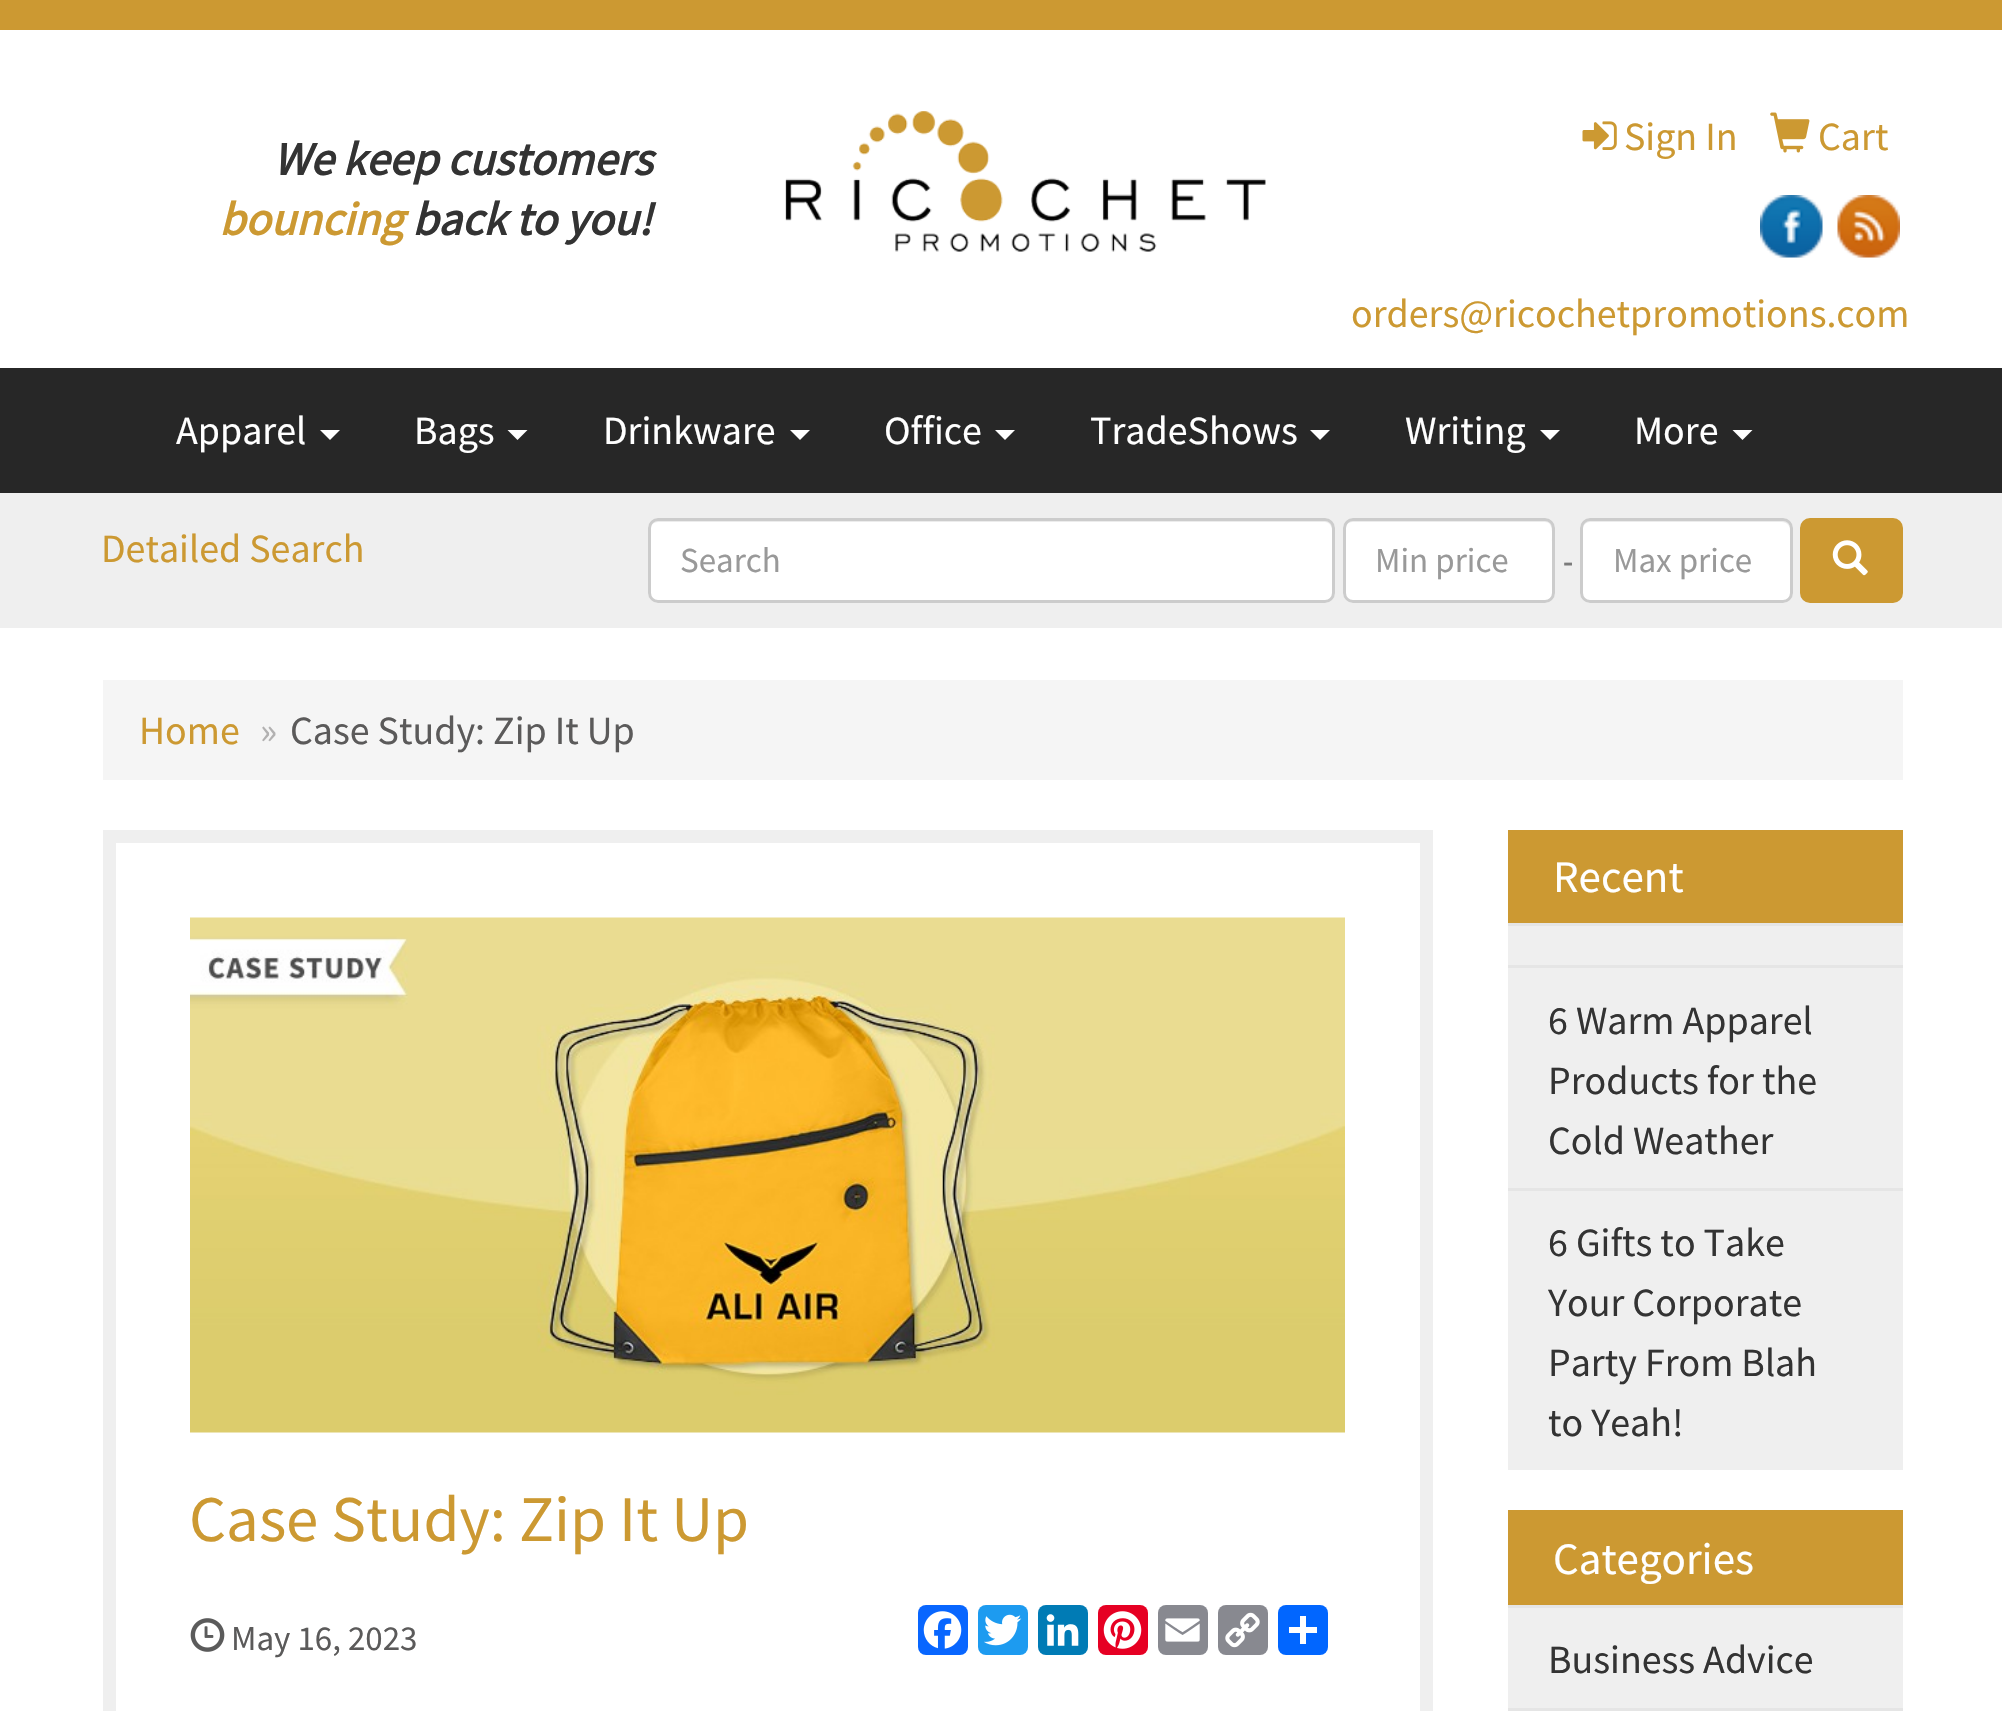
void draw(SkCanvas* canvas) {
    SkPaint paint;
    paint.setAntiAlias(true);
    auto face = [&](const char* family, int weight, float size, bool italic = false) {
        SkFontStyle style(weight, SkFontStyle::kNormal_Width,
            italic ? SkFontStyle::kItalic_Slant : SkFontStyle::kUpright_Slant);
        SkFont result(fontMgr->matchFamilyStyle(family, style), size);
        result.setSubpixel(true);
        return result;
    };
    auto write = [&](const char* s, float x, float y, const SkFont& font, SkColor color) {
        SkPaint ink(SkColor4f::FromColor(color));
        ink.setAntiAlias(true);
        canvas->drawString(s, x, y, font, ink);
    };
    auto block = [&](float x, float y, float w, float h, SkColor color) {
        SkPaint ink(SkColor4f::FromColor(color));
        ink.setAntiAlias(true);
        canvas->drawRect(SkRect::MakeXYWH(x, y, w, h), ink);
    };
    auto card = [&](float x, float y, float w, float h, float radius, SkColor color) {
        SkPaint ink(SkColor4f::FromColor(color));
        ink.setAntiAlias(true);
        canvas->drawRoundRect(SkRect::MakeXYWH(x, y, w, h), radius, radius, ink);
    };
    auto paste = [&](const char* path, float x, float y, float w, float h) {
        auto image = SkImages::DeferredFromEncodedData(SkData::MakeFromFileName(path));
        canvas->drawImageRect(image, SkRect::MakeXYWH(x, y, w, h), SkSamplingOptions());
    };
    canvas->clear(SK_ColorWHITE);
    block(0, 0, 2002, 30, SkColorSetRGB(204, 153, 50));
    auto kFont1 = face("Source Sans Pro", 700, 46.75f, true);
    write("We keep customers", 273, 175, kFont1, SkColorSetRGB(51, 51, 51));
    write("bouncing", 219, 235, kFont1, SkColorSetRGB(204, 153, 50));
    write("back to you!", 412, 235, kFont1, SkColorSetRGB(51, 51, 51));
    paste("pic1.png", 785, 111, 481, 141);
    paste("pic2.png", 1582, 121, 35, 29);
    auto kFont2 = face("Source Sans Pro", 400, 40);
    write("Sign In", 1624, 150, kFont2, SkColorSetRGB(204, 153, 50));
    paste("pic3.png", 1770, 112, 40, 41);
    write("Cart", 1818, 150, kFont2, SkColorSetRGB(204, 153, 50));
    paste("pic4.png", 1760, 195, 63, 63);
    paste("pic5.png", 1837, 195, 63, 63);
    write("orders@ricochetpromotions.com", 1351, 327, kFont2, SkColorSetRGB(204, 153, 50));
    block(0, 368, 2002, 125, SkColorSetRGB(39, 39, 39));
    write("Apparel", 176, 444, kFont2, SK_ColorWHITE);
    paint.setColor(SK_ColorWHITE);
    canvas->drawPath(SkPathBuilder().moveTo(320, 430).lineTo(340, 430).lineTo(330, 440).close().detach(), paint);
    write("Bags", 414, 444, kFont2, SK_ColorWHITE);
    canvas->drawPath(SkPathBuilder().moveTo(507.5f, 430).lineTo(527.5f, 430).lineTo(517.5f, 440).close().detach(), paint);
    write("Drinkware", 603, 444, kFont2, SK_ColorWHITE);
    canvas->drawPath(SkPathBuilder().moveTo(790, 430).lineTo(810, 430).lineTo(800, 440).close().detach(), paint);
    write("Office", 884, 444, kFont2, SK_ColorWHITE);
    canvas->drawPath(SkPathBuilder().moveTo(995, 430).lineTo(1015, 430).lineTo(1005, 440).close().detach(), paint);
    write("TradeShows", 1090, 444, kFont2, SK_ColorWHITE);
    canvas->drawPath(SkPathBuilder().moveTo(1310, 430).lineTo(1330, 430).lineTo(1320, 440).close().detach(), paint);
    write("Writing", 1405, 444, kFont2, SK_ColorWHITE);
    canvas->drawPath(SkPathBuilder().moveTo(1540, 430).lineTo(1560, 430).lineTo(1550, 440).close().detach(), paint);
    write("More", 1634, 444, kFont2, SK_ColorWHITE);
    canvas->drawPath(SkPathBuilder().moveTo(1732.5f, 430).lineTo(1752.5f, 430).lineTo(1742.5f, 440).close().detach(), paint);
    block(0, 493, 2002, 135, SkColorSetRGB(239, 239, 239));
    write("Detailed Search", 101, 562, kFont2, SkColorSetRGB(204, 153, 50));
    card(648, 518, 687, 85, 10, SK_ColorWHITE);
    paint.setColor(SkColorSetRGB(236, 236, 236));
    canvas->drawPath(SkPathBuilder().moveTo(658, 522).lineTo(1325, 522).cubicTo(1329, 522, 1332, 526, 1332, 530).lineTo(1332, 596).cubicTo(1333, 595, 1333, 593, 1333, 592).lineTo(1333, 528).cubicTo(1333, 524, 1329, 520, 1325, 520).lineTo(658, 520).cubicTo(654, 520, 650, 524, 650, 528).lineTo(650, 530).cubicTo(650, 526, 653, 522, 658, 522).close().detach(), paint);
    paint.setStyle(SkPaint::kStroke_Style);
    paint.setStrokeWidth(3);
    paint.setColor(SkColorSetRGB(204, 204, 204));
    canvas->drawRoundRect(SkRect::MakeXYWH(649.5f, 519.5f, 684, 82), 8.5f, 8.5f, paint);
    auto kFont3 = face("Source Sans Pro", 400, 35);
    write("Search", 680, 572, kFont3, SkColorSetRGB(153, 153, 153));
    card(1343, 518, 212, 85, 10, SK_ColorWHITE);
    paint.setStyle(SkPaint::kFill_Style);
    paint.setColor(SkColorSetRGB(236, 236, 236));
    canvas->drawPath(SkPathBuilder().moveTo(1352, 522).lineTo(1545, 522).cubicTo(1554, 522, 1552, 536, 1552, 541).lineTo(1552, 596).cubicTo(1553, 595, 1553, 593, 1553, 592).lineTo(1553, 528).cubicTo(1553, 524, 1549, 520, 1545, 520).lineTo(1353, 520).cubicTo(1349, 520, 1345, 524, 1345, 528).lineTo(1345, 530).cubicTo(1345, 526, 1348, 522, 1352, 522).close().detach(), paint);
    paint.setStyle(SkPaint::kStroke_Style);
    paint.setColor(SkColorSetRGB(204, 204, 204));
    canvas->drawRoundRect(SkRect::MakeXYWH(1344.5f, 519.5f, 209, 82), 8.5f, 8.5f, paint);
    write("Min price", 1375, 572, kFont3, SkColorSetRGB(153, 153, 153));
    auto kFont4 = face("Source Sans Pro", 700, 30);
    write("-", 1563, 572, kFont4, SkColorSetRGB(123, 123, 123));
    card(1580, 518, 213, 85, 10, SK_ColorWHITE);
    paint.setStyle(SkPaint::kFill_Style);
    paint.setColor(SkColorSetRGB(236, 236, 236));
    canvas->drawPath(SkPathBuilder().moveTo(1590, 522).lineTo(1782, 522).cubicTo(1787, 522, 1790, 526, 1790, 530).lineTo(1790, 528).cubicTo(1790, 524, 1786, 520, 1782, 520).lineTo(1591, 520).cubicTo(1587, 520, 1584, 523, 1583, 526).cubicTo(1585, 524, 1587, 522, 1590, 522).close().detach(), paint);
    paint.setStyle(SkPaint::kStroke_Style);
    paint.setColor(SkColorSetRGB(204, 204, 204));
    canvas->drawRoundRect(SkRect::MakeXYWH(1581.5f, 519.5f, 210, 82), 8.5f, 8.5f, paint);
    write("Max price", 1613, 572, kFont3, SkColorSetRGB(153, 153, 153));
    paint.setStyle(SkPaint::kFill_Style);
    paint.setColor(SkColorSetRGB(204, 153, 50));
    canvas->drawRoundRect(SkRect::MakeXYWH(1801.5f, 519.5f, 100, 82), 8.5f, 8.5f, paint);
    paint.setStyle(SkPaint::kStroke_Style);
    canvas->drawRoundRect(SkRect::MakeXYWH(1801.5f, 519.5f, 100, 82), 8.5f, 8.5f, paint);
    paste("pic6.png", 1832, 540, 36, 36);
    block(103, 680, 1800, 100, SkColorSetRGB(245, 245, 245));
    write("Home", 139, 744, kFont2, SkColorSetRGB(204, 153, 50));
    write("»", 260, 744, kFont2, SkColorSetRGB(178, 177, 177));
    write("Case Study: Zip It Up", 290, 744, kFont2, SkColorSetRGB(91, 90, 90));
    paint.setStrokeWidth(13);
    paint.setColor(SkColorSetRGB(239, 239, 239));
    canvas->drawRect(SkRect::MakeXYWH(109.5f, 836.5f, 1317, 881), paint);
    paste("pic7.png", 190, 917, 1155, 516);
    auto kFont5 = face("Source Sans Pro", 400, 65);
    write("Case Study: Zip It Up", 189, 1541, kFont5, SkColorSetRGB(204, 153, 50));
    paste("pic8.png", 190, 1618, 35, 34);
    write("May 16, 2023", 231, 1650, kFont3, SkColorSetRGB(91, 90, 90));
    card(918, 1605, 50, 50, 8, SkColorSetRGB(8, 102, 255));
    paste("pic9.png", 923, 1611, 39, 38);
    card(978, 1605, 50, 50, 8, SkColorSetRGB(29, 155, 240));
    paste("pic10.png", 984, 1614, 38, 32);
    card(1038, 1605, 50, 50, 8, SkColorSetRGB(0, 123, 181));
    paste("pic11.png", 1046, 1614, 33, 32);
    card(1098, 1605, 50, 50, 8, SkColorSetRGB(230, 0, 35));
    paste("pic12.png", 1103, 1611, 39, 38);
    card(1158, 1605, 50, 50, 8, SkColorSetRGB(136, 137, 144));
    paste("pic13.png", 1165, 1618, 35, 24);
    card(1218, 1605, 50, 50, 8, SkColorSetRGB(136, 137, 144));
    paste("pic14.png", 1225, 1612, 35, 36);
    card(1278, 1605, 50, 50, 8, SkColorSetRGB(1, 102, 255));
    block(1300, 1616, 6, 28, SK_ColorWHITE);
    block(1289, 1627, 28, 6, SK_ColorWHITE);
    block(1508, 830, 395, 93, SkColorSetRGB(204, 153, 50));
    auto kFont6 = face("Source Sans Pro", 400, 45);
    write("Recent", 1553, 892, kFont6, SK_ColorWHITE);
    block(1508, 926, 395, 39, SkColorSetRGB(239, 239, 239));
    block(1508, 923, 395, 3, SkColorSetRGB(229, 229, 229));
    block(1508, 968, 395, 220, SkColorSetRGB(239, 239, 239));
    block(1508, 965, 395, 3, SkColorSetRGB(229, 229, 229));
    write("6 Warm Apparel", 1548, 1034, kFont2, SkColorSetRGB(51, 51, 51));
    write("Products for the", 1548, 1094, kFont2, SkColorSetRGB(51, 51, 51));
    write("Cold Weather", 1548, 1154, kFont2, SkColorSetRGB(51, 51, 51));
    block(1508, 1191, 395, 279, SkColorSetRGB(239, 239, 239));
    block(1508, 1188, 395, 3, SkColorSetRGB(229, 229, 229));
    write("6 Gifts to Take", 1548, 1256, kFont2, SkColorSetRGB(51, 51, 51));
    write("Your Corporate", 1548, 1316, kFont2, SkColorSetRGB(51, 51, 51));
    write("Party From Blah", 1548, 1376, kFont2, SkColorSetRGB(51, 51, 51));
    write("to Yeah!", 1548, 1436, kFont2, SkColorSetRGB(51, 51, 51));
    block(1508, 1510, 395, 95, SkColorSetRGB(204, 153, 50));
    write("Categories", 1553, 1574, kFont6, SK_ColorWHITE);
    block(1508, 1608, 395, 100, SkColorSetRGB(239, 239, 239));
    block(1508, 1605, 395, 3, SkColorSetRGB(229, 229, 229));
    write("Business Advice", 1548, 1673, kFont2, SkColorSetRGB(51, 51, 51));
    block(1508, 1708, 395, 3, SkColorSetRGB(229, 229, 229));
}
